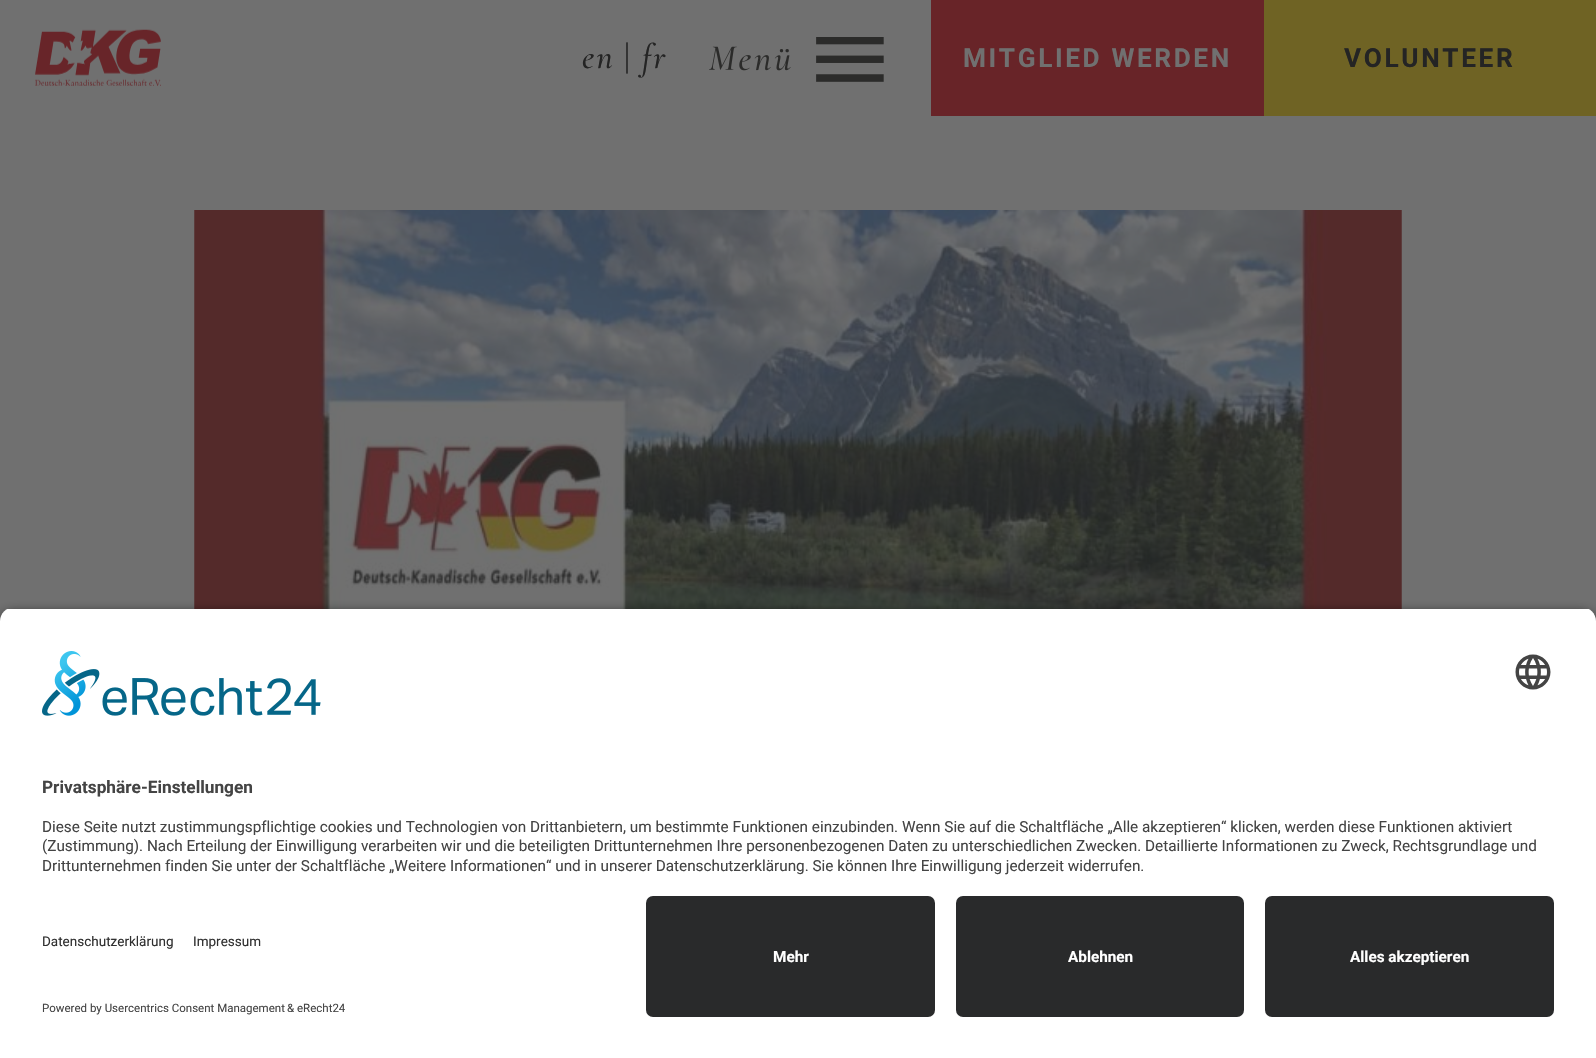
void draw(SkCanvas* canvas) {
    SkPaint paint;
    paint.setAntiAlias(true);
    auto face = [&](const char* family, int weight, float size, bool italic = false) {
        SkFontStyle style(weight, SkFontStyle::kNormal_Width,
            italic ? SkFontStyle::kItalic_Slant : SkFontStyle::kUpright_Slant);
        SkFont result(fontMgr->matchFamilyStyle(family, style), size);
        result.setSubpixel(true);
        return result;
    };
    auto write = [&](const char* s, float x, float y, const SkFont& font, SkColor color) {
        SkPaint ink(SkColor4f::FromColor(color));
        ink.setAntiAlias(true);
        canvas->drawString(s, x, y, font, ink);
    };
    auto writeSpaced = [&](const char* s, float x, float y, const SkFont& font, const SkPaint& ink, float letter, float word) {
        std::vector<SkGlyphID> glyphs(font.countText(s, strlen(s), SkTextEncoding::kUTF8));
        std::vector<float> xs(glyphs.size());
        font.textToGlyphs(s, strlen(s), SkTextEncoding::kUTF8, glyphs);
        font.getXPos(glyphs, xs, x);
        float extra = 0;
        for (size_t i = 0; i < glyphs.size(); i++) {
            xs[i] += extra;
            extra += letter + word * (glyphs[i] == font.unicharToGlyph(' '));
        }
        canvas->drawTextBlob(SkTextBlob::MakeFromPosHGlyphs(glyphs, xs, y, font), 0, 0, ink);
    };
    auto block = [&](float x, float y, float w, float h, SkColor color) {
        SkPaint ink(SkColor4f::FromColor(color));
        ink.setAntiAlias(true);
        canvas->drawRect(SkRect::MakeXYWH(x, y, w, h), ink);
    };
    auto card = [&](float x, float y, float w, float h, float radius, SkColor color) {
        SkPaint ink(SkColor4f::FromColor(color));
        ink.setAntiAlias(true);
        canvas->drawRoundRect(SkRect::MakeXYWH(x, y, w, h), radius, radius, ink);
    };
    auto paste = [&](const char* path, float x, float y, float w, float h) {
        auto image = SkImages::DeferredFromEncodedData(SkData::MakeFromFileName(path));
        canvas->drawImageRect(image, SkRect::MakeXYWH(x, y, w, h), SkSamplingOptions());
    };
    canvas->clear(SkColorSetRGB(112, 112, 112));
    paste("pic1.png", 35, 29, 126, 57);
    auto kFont1 = face("Cormorant Garamond", 500, 35, true);
    paint.setColor(SkColorSetRGB(36, 36, 36));
    writeSpaced("en", 582, 68, kFont1, paint, 2, 0);
    auto kFont2 = face("Cormorant Garamond", 500, 35);
    writeSpaced("|", 624, 68, kFont2, paint, 2, 0);
    writeSpaced("fr", 642, 68, kFont1, paint, 2, 0);
    paste("pic2.png", 709, 37, 175, 45);
    block(931, 0, 333, 116, SkColorSetRGB(104, 36, 40));
    auto kFont3 = face("Roboto", 700, 26.25f);
    paint.setColor(SkColorSetRGB(112, 112, 112));
    writeSpaced("MITGLIED WERDEN", 963, 67, kFont3, paint, 2.6f, 0);
    block(1264, 0, 332, 116, SkColorSetRGB(111, 99, 36));
    paint.setColor(SkColorSetRGB(36, 36, 36));
    writeSpaced("VOLUNTEER", 1344, 67, kFont3, paint, 2.6f, 0);
    paste("pic3.png", 194, 210, 1208, 399);
    paint.setColor(SkColorSetARGB(204, 0, 0, 0));
    paint.setMaskFilter(SkMaskFilter::MakeBlur(kNormal_SkBlurStyle, 6));
    canvas->drawRoundRect(SkRect::MakeXYWH(0, 613, 1596, 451), 14, 14, paint);
    paint.setMaskFilter(nullptr);
    canvas->save();
    canvas->clipPath(SkPathBuilder().moveTo(14, 607).lineTo(1582, 607).cubicTo(1589.5f, 607, 1596, 613.5f, 1596, 621).lineTo(1596, 882).lineTo(0, 882).lineTo(0, 621).cubicTo(0, 613.5f, 6.5f, 607, 14, 607).close().detach(), true);
    block(0, 609, 1596, 273, SK_ColorWHITE);
    canvas->restore();
    paste("pic4.png", 42, 651, 279, 65);
    paste("pic5.png", 1515, 654, 36, 36);
    auto kFont4 = face("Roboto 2", 700, 17.25f);
    write("Privatsphäre-Einstellungen", 42, 793, kFont4, SkColorSetRGB(68, 68, 68));
    auto kFont5 = face("Roboto", 400, 15.3f);
    write("Diese Seite nutzt zustimmungspflichtige cookies und Technologien von Drittanbietern, um bestimmte Funktionen einzubinden. Wenn Sie auf die Schaltfläche „Alle akzeptieren“ klicken, werden diese Funktionen aktiviert", 42, 832, kFont5, SkColorSetRGB(68, 68, 68));
    write("(Zustimmung). Nach Erteilung der Einwilligung verarbeiten wir und die beteiligten Drittunternehmen Ihre personenbezogenen Daten zu unterschiedlichen Zwecken. Detaillierte Informationen zu Zweck, Rechtsgrundlage und", 42, 851, kFont5, SkColorSetRGB(68, 68, 68));
    write("Drittunternehmen finden Sie unter der Schaltfläche „Weitere Informationen“ und in unserer Datenschutzerklärung. Sie können Ihre Einwilligung jederzeit widerrufen.", 42, 871, kFont5, SkColorSetRGB(68, 68, 68));
    block(0, 882, 1596, 176, SK_ColorWHITE);
    auto kFont6 = face("Roboto", 400, 13.5f);
    write("Datenschutzerklärung", 42, 946, kFont6, SkColorSetRGB(48, 48, 48));
    write("Impressum", 193, 946, kFont6, SkColorSetRGB(48, 48, 48));
    auto kFont7 = face("Roboto", 400, 11.5f);
    write("Powered by Usercentrics Consent Management", 42, 1012, kFont7, SkColorSetRGB(68, 68, 68));
    write("& eRecht24", 287, 1012, kFont7, SkColorSetRGB(68, 68, 68));
    card(646, 896, 289, 121, 7, SkColorSetRGB(41, 42, 43));
    auto kFont8 = face("Roboto 2", 700, 15.3f);
    write("Mehr", 773, 962, kFont8, SK_ColorWHITE);
    card(956, 896, 288, 121, 7, SkColorSetRGB(41, 42, 43));
    write("Ablehnen", 1068, 962, kFont8, SK_ColorWHITE);
    card(1265, 896, 289, 121, 7, SkColorSetRGB(41, 42, 43));
    write("Alles akzeptieren", 1350, 962, kFont8, SK_ColorWHITE);
}
